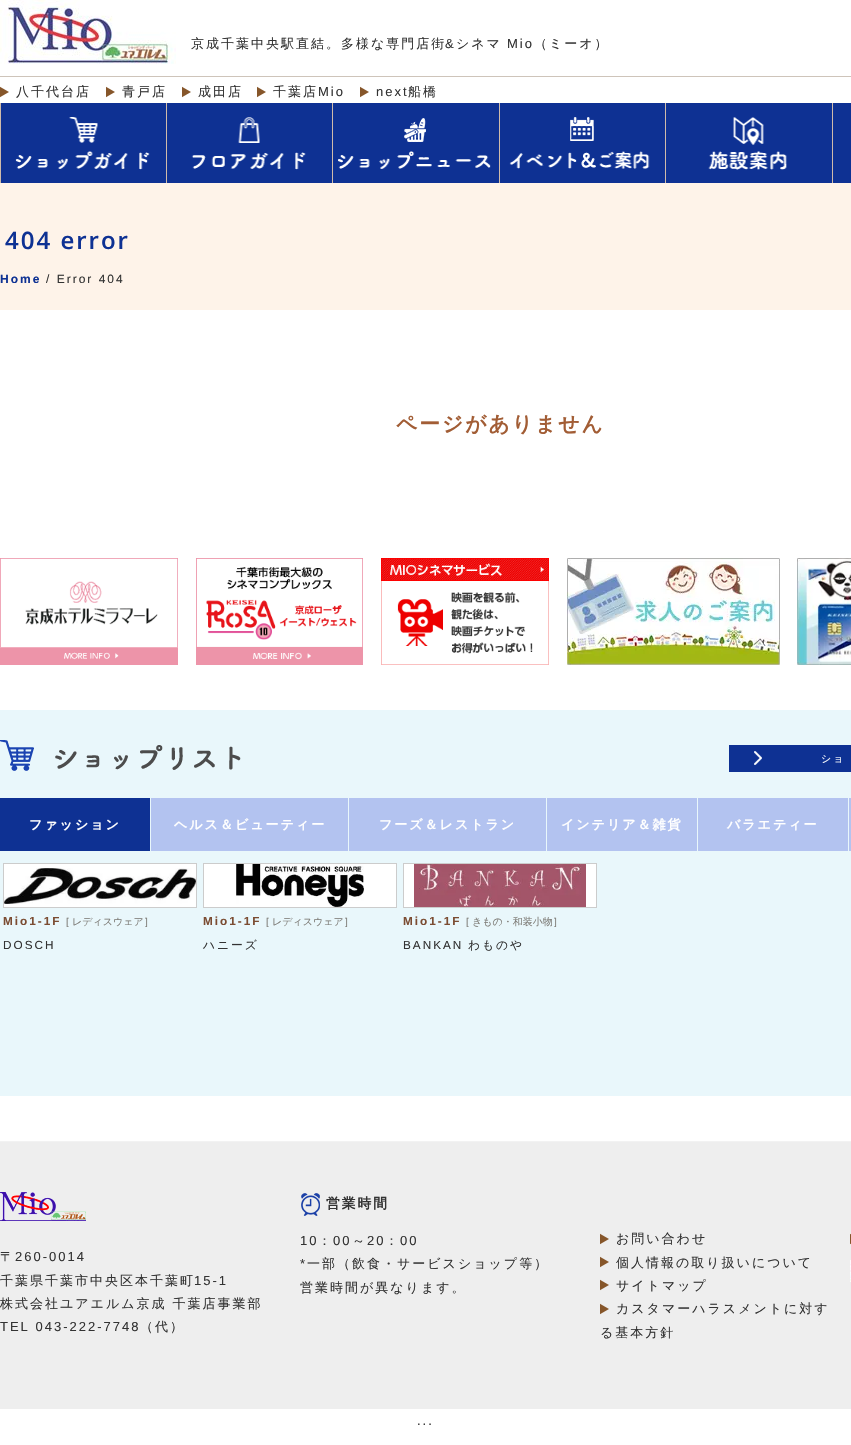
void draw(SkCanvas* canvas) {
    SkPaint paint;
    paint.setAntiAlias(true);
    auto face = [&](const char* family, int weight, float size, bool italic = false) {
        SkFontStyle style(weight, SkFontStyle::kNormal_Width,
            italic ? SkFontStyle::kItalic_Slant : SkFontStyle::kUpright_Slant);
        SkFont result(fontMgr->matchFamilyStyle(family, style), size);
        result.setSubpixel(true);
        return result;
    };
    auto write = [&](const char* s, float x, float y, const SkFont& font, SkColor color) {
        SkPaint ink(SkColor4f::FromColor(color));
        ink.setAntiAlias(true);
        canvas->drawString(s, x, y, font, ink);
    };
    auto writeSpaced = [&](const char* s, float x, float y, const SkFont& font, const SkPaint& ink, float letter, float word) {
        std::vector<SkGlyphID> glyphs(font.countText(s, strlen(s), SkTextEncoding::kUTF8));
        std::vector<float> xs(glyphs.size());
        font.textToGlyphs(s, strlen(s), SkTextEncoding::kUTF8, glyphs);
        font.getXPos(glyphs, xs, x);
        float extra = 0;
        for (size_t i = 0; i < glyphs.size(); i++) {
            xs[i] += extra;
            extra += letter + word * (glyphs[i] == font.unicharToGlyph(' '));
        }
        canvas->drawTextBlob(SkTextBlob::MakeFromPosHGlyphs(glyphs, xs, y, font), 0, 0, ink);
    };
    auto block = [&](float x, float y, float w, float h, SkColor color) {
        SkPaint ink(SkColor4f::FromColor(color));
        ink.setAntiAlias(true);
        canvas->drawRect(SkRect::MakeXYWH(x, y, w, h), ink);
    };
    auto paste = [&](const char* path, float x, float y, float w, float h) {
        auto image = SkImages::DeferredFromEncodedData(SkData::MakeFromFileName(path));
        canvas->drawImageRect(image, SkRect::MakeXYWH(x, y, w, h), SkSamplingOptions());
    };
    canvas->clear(SK_ColorWHITE);
    paste("pic1.png", 0, 0, 176, 64);
    auto kFont1 = face("WenQuanYi Zen Hei", 500, 13);
    paint.setColor(SkColorSetRGB(51, 51, 51));
    writeSpaced("京成千葉中央駅直結。多様な専門店街", 191, 48, kFont1, paint, 2, 0);
    auto kFont2 = face("Liberation Sans", 400, 13);
    writeSpaced("&", 445, 48, kFont2, paint, 2, 0);
    writeSpaced("シネマ", 456, 48, kFont1, paint, 2, 0);
    writeSpaced("Mio", 507, 48, kFont2, paint, 2, 0);
    writeSpaced("（ミーオ）", 534, 48, kFont1, paint, 2, 0);
    block(0, 76, 851, 1, SkColorSetRGB(206, 196, 186));
    paste("pic2.png", 0, 86, 9, 12);
    writeSpaced("八千代台店", 16, 96, kFont1, paint, 2, 0);
    paste("pic2.png", 106, 86, 9, 12);
    writeSpaced("青戸店", 122, 96, kFont1, paint, 2, 0);
    paste("pic2.png", 182, 86, 9, 12);
    writeSpaced("成田店", 198, 96, kFont1, paint, 2, 0);
    paste("pic2.png", 257, 86, 9, 12);
    writeSpaced("千葉店", 273, 96, kFont1, paint, 2, 0);
    writeSpaced("Mio", 318, 96, kFont2, paint, 2, 0);
    paste("pic2.png", 360, 86, 9, 12);
    writeSpaced("next", 376, 96, kFont2, paint, 2, 0);
    writeSpaced("船橋", 408, 96, kFont1, paint, 2, 0);
    block(1, 103, 850, 80, SkColorSetRGB(14, 49, 147));
    block(0, 103, 1, 80, SkColorSetRGB(207, 187, 170));
    paste("pic3.png", 15, 117, 135, 53);
    block(166, 103, 1, 80, SkColorSetRGB(207, 187, 170));
    paste("pic4.png", 191, 117, 115, 53);
    block(332, 103, 1, 80, SkColorSetRGB(207, 187, 170));
    paste("pic5.png", 338, 118, 153, 51);
    block(499, 103, 1, 80, SkColorSetRGB(207, 187, 170));
    paste("pic6.png", 509, 117, 141, 52);
    block(665, 103, 1, 80, SkColorSetRGB(207, 187, 170));
    paste("pic7.png", 708, 117, 79, 53);
    block(832, 103, 1, 80, SkColorSetRGB(207, 187, 170));
    block(0, 183, 851, 127, SkColorSetRGB(254, 243, 233));
    auto kFont3 = face("Open Sans", 600, 24);
    paint.setColor(SkColorSetRGB(14, 49, 147));
    writeSpaced("404 error", 5, 249, kFont3, paint, 2, 0);
    auto kFont4 = face("Liberation Sans", 700, 12);
    writeSpaced("Home", 0, 283, kFont4, paint, 2, 0);
    auto kFont5 = face("Liberation Sans", 400, 12);
    paint.setColor(SkColorSetRGB(51, 51, 51));
    writeSpaced("/ Error 404", 46, 283, kFont5, paint, 2, 0);
    auto kFont6 = face("WenQuanYi Zen Hei", 700, 20.75f);
    paint.setColor(SkColorSetRGB(162, 93, 53));
    writeSpaced("ページがありません", 396, 431, kFont6, paint, 2, 0);
    paste("pic8.png", 0, 558, 178, 107);
    paste("pic9.png", 196, 558, 167, 107);
    paste("pic10.png", 381, 558, 168, 107);
    paste("pic11.png", 567, 558, 213, 107);
    paste("pic12.png", 797, 558, 54, 107);
    block(0, 710, 851, 386, SkColorSetRGB(233, 247, 251));
    paste("pic13.png", 0, 740, 241, 31);
    block(729, 745, 122, 27, SkColorSetRGB(14, 49, 147));
    paste("pic14.png", 754, 751, 8, 14);
    auto kFont7 = face("WenQuanYi Zen Hei", 500, 10);
    paint.setColor(SK_ColorWHITE);
    writeSpaced("ショ", 821, 762, kFont7, paint, 2, 0);
    block(0, 798, 150, 53, SkColorSetRGB(14, 49, 147));
    auto kFont8 = face("WenQuanYi Zen Hei", 700, 13);
    writeSpaced("ファッション", 29, 829, kFont8, paint, 2, 0);
    block(151, 798, 197, 53, SkColorSetRGB(179, 195, 240));
    writeSpaced("ヘルス＆ビューティー", 174, 829, kFont8, paint, 2, 0);
    block(349, 798, 197, 53, SkColorSetRGB(179, 195, 240));
    writeSpaced("フーズ＆レストラン", 379, 829, kFont8, paint, 2, 0);
    block(547, 798, 150, 53, SkColorSetRGB(179, 195, 240));
    writeSpaced("インテリア＆雑貨", 561, 829, kFont8, paint, 2, 0);
    block(698, 798, 150, 53, SkColorSetRGB(179, 195, 240));
    writeSpaced("バラエティー", 727, 829, kFont8, paint, 2, 0);
    block(849, 798, 2, 53, SkColorSetRGB(179, 195, 240));
    canvas->drawRect(SkRect::MakeXYWH(3.5f, 863.5f, 193, 44), paint);
    paint.setStyle(SkPaint::kStroke_Style);
    paint.setStrokeWidth(1);
    paint.setColor(SkColorSetRGB(204, 204, 204));
    canvas->drawRect(SkRect::MakeXYWH(3.5f, 863.5f, 193, 44), paint);
    paste("pic15.png", 4, 868, 192, 36);
    auto kFont9 = face("Liberation Sans", 700, 11.75f);
    paint.setStyle(SkPaint::kFill_Style);
    paint.setColor(SkColorSetRGB(123, 76, 50));
    writeSpaced("Mio1-1F", 3, 925, kFont9, paint, 2, 0);
    auto kFont10 = face("Liberation Sans", 400, 10);
    write("[", 66, 925, kFont10, SkColorSetRGB(127, 125, 120));
    write("レディスウェア", 72, 925, kFont7, SkColorSetRGB(127, 125, 120));
    write("]", 145, 925, kFont10, SkColorSetRGB(127, 125, 120));
    auto kFont11 = face("Liberation Sans", 400, 11.75f);
    paint.setColor(SkColorSetRGB(51, 51, 51));
    writeSpaced("DOSCH", 3, 949, kFont11, paint, 2, 0);
    paint.setColor(SK_ColorWHITE);
    canvas->drawRect(SkRect::MakeXYWH(203.5f, 863.5f, 193, 44), paint);
    paint.setStyle(SkPaint::kStroke_Style);
    paint.setColor(SkColorSetRGB(204, 204, 204));
    canvas->drawRect(SkRect::MakeXYWH(203.5f, 863.5f, 193, 44), paint);
    paste("pic16.png", 236, 864, 128, 43);
    paint.setStyle(SkPaint::kFill_Style);
    paint.setColor(SkColorSetRGB(123, 76, 50));
    writeSpaced("Mio1-1F", 203, 925, kFont9, paint, 2, 0);
    write("[", 266, 925, kFont10, SkColorSetRGB(127, 125, 120));
    write("レディスウェア", 272, 925, kFont7, SkColorSetRGB(127, 125, 120));
    write("]", 345, 925, kFont10, SkColorSetRGB(127, 125, 120));
    auto kFont12 = face("WenQuanYi Zen Hei", 500, 11.75f);
    paint.setColor(SkColorSetRGB(51, 51, 51));
    writeSpaced("ハニーズ", 203, 949, kFont12, paint, 2, 0);
    paint.setColor(SK_ColorWHITE);
    canvas->drawRect(SkRect::MakeXYWH(403.5f, 863.5f, 193, 44), paint);
    paint.setStyle(SkPaint::kStroke_Style);
    paint.setColor(SkColorSetRGB(204, 204, 204));
    canvas->drawRect(SkRect::MakeXYWH(403.5f, 863.5f, 193, 44), paint);
    paste("pic17.png", 414, 864, 172, 43);
    paint.setStyle(SkPaint::kFill_Style);
    paint.setColor(SkColorSetRGB(123, 76, 50));
    writeSpaced("Mio1-1F", 403, 925, kFont9, paint, 2, 0);
    write("[", 466, 925, kFont10, SkColorSetRGB(127, 125, 120));
    write("きもの・和装小物", 472, 925, kFont7, SkColorSetRGB(127, 125, 120));
    write("]", 554, 925, kFont10, SkColorSetRGB(127, 125, 120));
    paint.setColor(SkColorSetRGB(51, 51, 51));
    writeSpaced("BANKAN", 403, 949, kFont11, paint, 2, 0);
    writeSpaced("わものや", 468, 949, kFont12, paint, 2, 0);
    block(0, 1141, 851, 1, SkColorSetRGB(242, 242, 242));
    block(0, 1142, 851, 267, SkColorSetRGB(238, 238, 238));
    paste("pic18.png", 0, 1192, 86, 29);
    writeSpaced("〒", 0, 1261, kFont1, paint, 2, 0);
    writeSpaced("260-0014", 15, 1261, kFont2, paint, 2, 0);
    writeSpaced("千葉県千葉市中央区本千葉町", 0, 1285, kFont1, paint, 2, 0);
    writeSpaced("15-1", 194, 1285, kFont2, paint, 2, 0);
    writeSpaced("株式会社ユアエルム京成 千葉店事業部", 0, 1308, kFont1, paint, 2, 0);
    writeSpaced("TEL 043-222-7748", 0, 1331, kFont2, paint, 2, 0);
    writeSpaced("（代）", 140, 1331, kFont1, paint, 2, 0);
    paste("pic19.png", 301, 1193, 19, 23);
    auto kFont13 = face("WenQuanYi Zen Hei", 700, 13.75f);
    writeSpaced("営業時間", 326, 1208, kFont13, paint, 2, 0);
    writeSpaced("10", 300, 1245, kFont2, paint, 2, 0);
    writeSpaced("：", 318, 1245, kFont1, paint, 2, 0);
    writeSpaced("00", 333, 1245, kFont2, paint, 2, 0);
    writeSpaced("～", 352, 1245, kFont1, paint, 2, 0);
    writeSpaced("20", 367, 1245, kFont2, paint, 2, 0);
    writeSpaced("：", 385, 1245, kFont1, paint, 2, 0);
    writeSpaced("00", 400, 1245, kFont2, paint, 2, 0);
    writeSpaced("*", 300, 1268, kFont2, paint, 2, 0);
    writeSpaced("一部（飲食・サービスショップ等）", 307, 1268, kFont1, paint, 2, 0);
    writeSpaced("営業時間が異なります。", 300, 1292, kFont1, paint, 2, 0);
    paste("pic20.png", 600, 1233, 9, 12);
    writeSpaced("お問い合わせ", 616, 1243, kFont1, paint, 2, 0);
    paste("pic20.png", 600, 1256, 9, 12);
    writeSpaced("個人情報の取り扱いについて", 616, 1267, kFont1, paint, 2, 0);
    paste("pic20.png", 600, 1279, 9, 12);
    writeSpaced("サイトマップ", 616, 1290, kFont1, paint, 2, 0);
    paste("pic20.png", 600, 1303, 9, 12);
    writeSpaced("カスタマーハラスメントに対す", 616, 1313, kFont1, paint, 2, 0);
    writeSpaced("る基本方針", 600, 1337, kFont1, paint, 2, 0);
    paste("pic21.png", 850, 1233, 1, 12);
    paste("pic22.png", 850, 1260, 1, 22);
    writeSpaced("...", 417, 1425, kFont2, paint, 2, 0);
}
